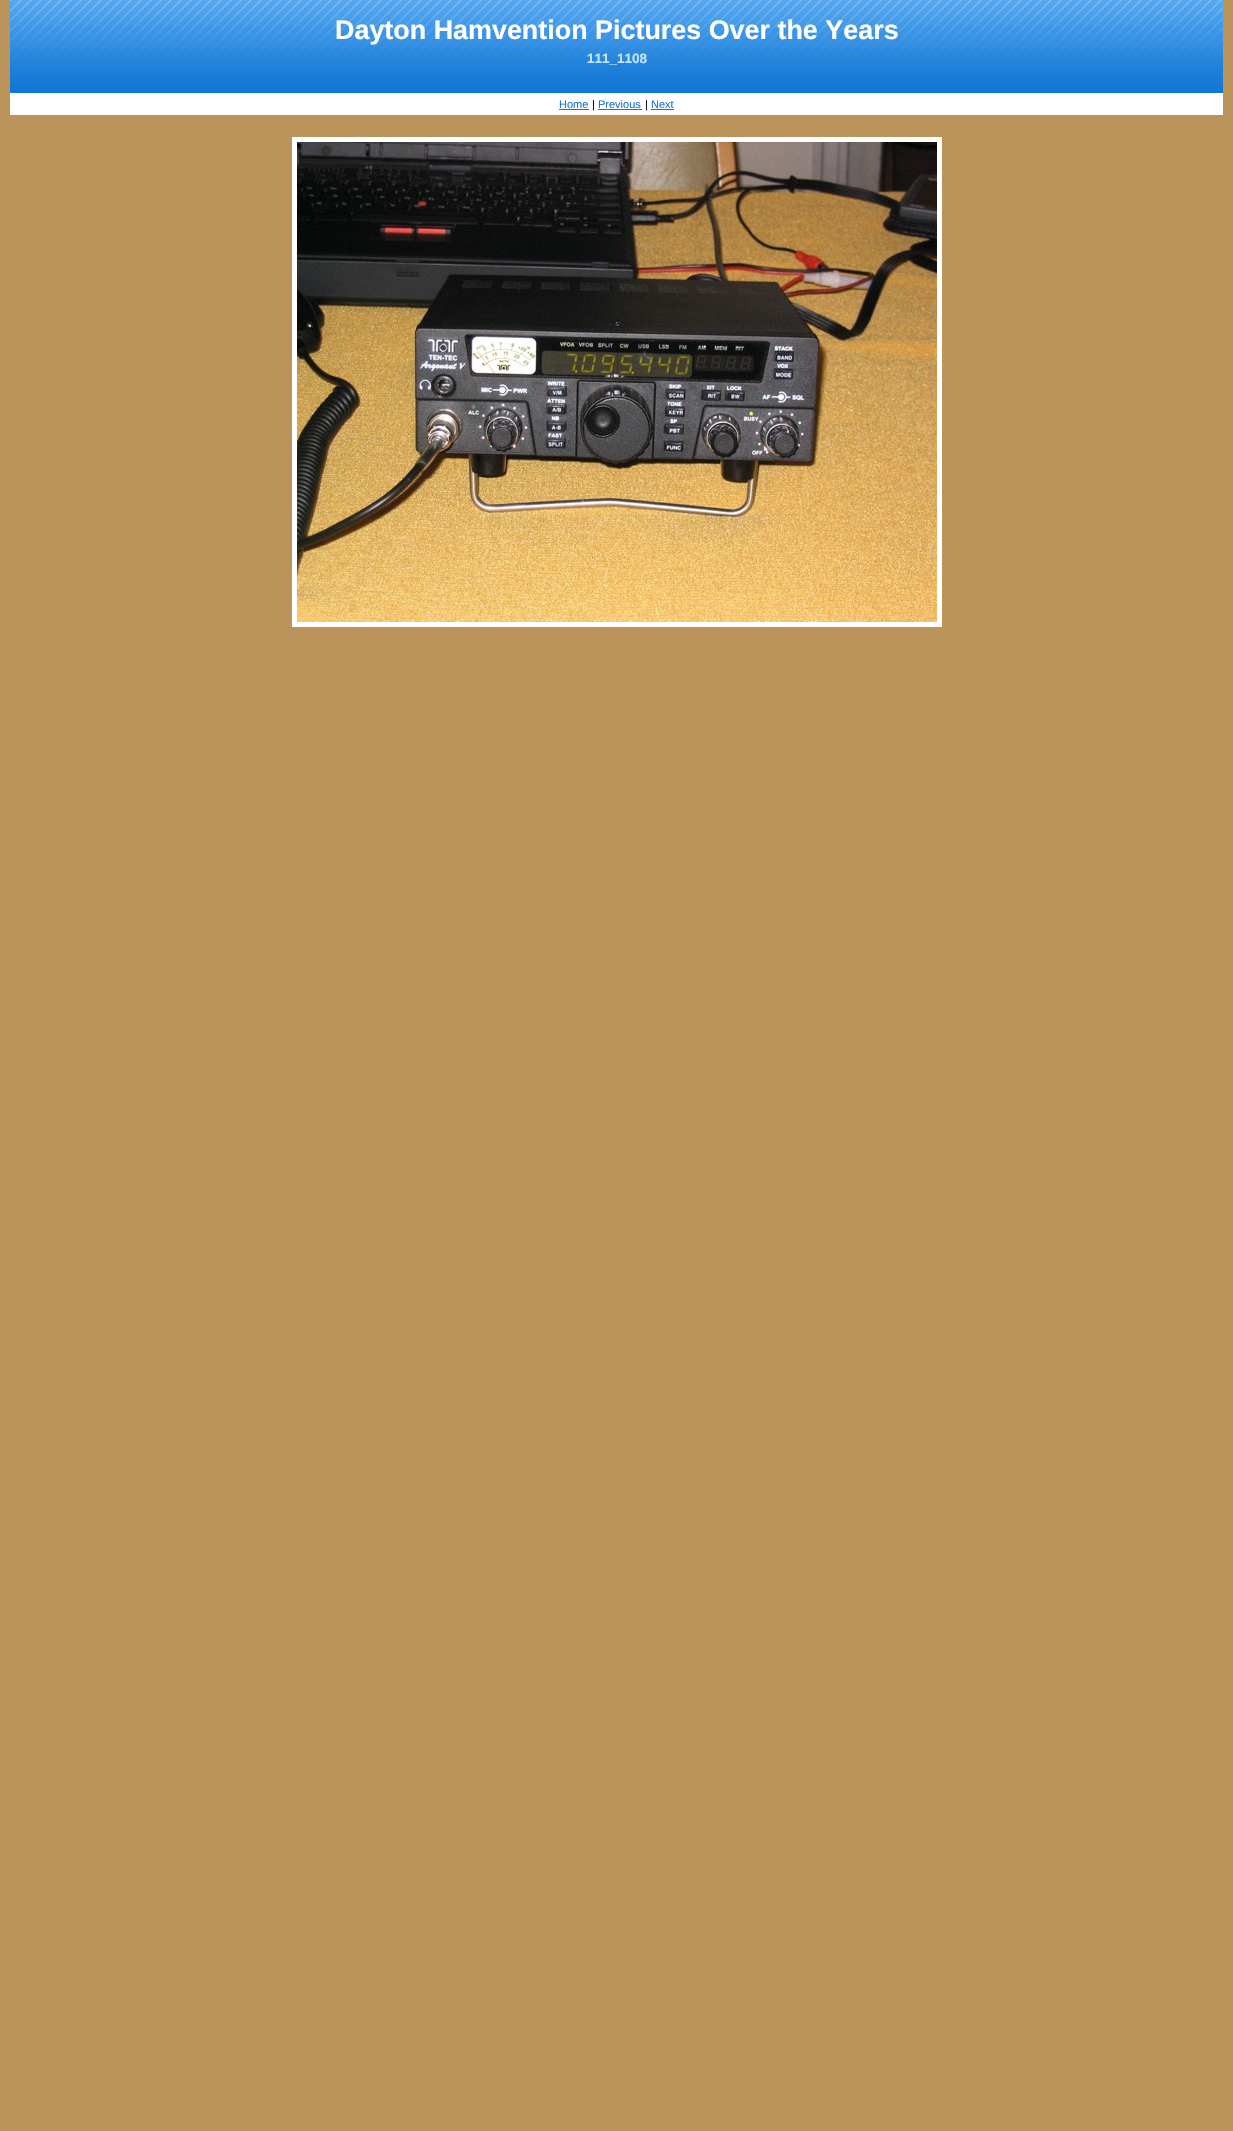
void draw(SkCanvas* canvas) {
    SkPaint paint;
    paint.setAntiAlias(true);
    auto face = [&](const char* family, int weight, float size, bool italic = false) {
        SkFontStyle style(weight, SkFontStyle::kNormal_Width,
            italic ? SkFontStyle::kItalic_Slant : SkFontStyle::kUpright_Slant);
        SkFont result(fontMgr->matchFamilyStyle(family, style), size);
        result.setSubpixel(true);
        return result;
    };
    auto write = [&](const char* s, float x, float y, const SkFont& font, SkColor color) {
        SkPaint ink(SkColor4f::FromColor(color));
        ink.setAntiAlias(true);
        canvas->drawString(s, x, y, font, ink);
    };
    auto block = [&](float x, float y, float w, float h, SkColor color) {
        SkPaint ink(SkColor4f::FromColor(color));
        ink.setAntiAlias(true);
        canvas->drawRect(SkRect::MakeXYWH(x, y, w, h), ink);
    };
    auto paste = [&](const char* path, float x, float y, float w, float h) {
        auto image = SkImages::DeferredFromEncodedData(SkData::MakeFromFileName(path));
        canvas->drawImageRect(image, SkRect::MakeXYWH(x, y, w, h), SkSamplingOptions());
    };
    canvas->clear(SkColorSetRGB(186, 148, 91));
    paste("pic1.png", 10, 0, 1213, 93);
    auto kFont1 = face("Liberation Sans", 700, 26.9f);
    write("Dayton Hamvention Pictures Over the Years", 335, 39, kFont1, SK_ColorWHITE);
    auto kFont2 = face("Liberation Sans", 700, 13.5f);
    write("111_1108", 587, 63, kFont2, SkColorSetRGB(199, 229, 250));
    block(10, 93, 1213, 22, SK_ColorWHITE);
    auto kFont3 = face("Liberation Sans", 400, 11);
    write("Home", 559, 108, kFont3, SkColorSetRGB(24, 112, 218));
    block(559, 109, 30, 1, SkColorSetRGB(24, 112, 218));
    write("|", 592, 108, kFont3, SK_ColorBLACK);
    write("Previous", 598, 108, kFont3, SkColorSetRGB(24, 112, 218));
    block(598, 109, 44, 1, SkColorSetRGB(24, 112, 218));
    write("|", 645, 108, kFont3, SK_ColorBLACK);
    write("Next", 651, 108, kFont3, SkColorSetRGB(24, 112, 218));
    block(651, 109, 23, 1, SkColorSetRGB(24, 112, 218));
    block(292, 137, 650, 490, SK_ColorWHITE);
    paste("pic2.png", 297, 142, 640, 480);
}
